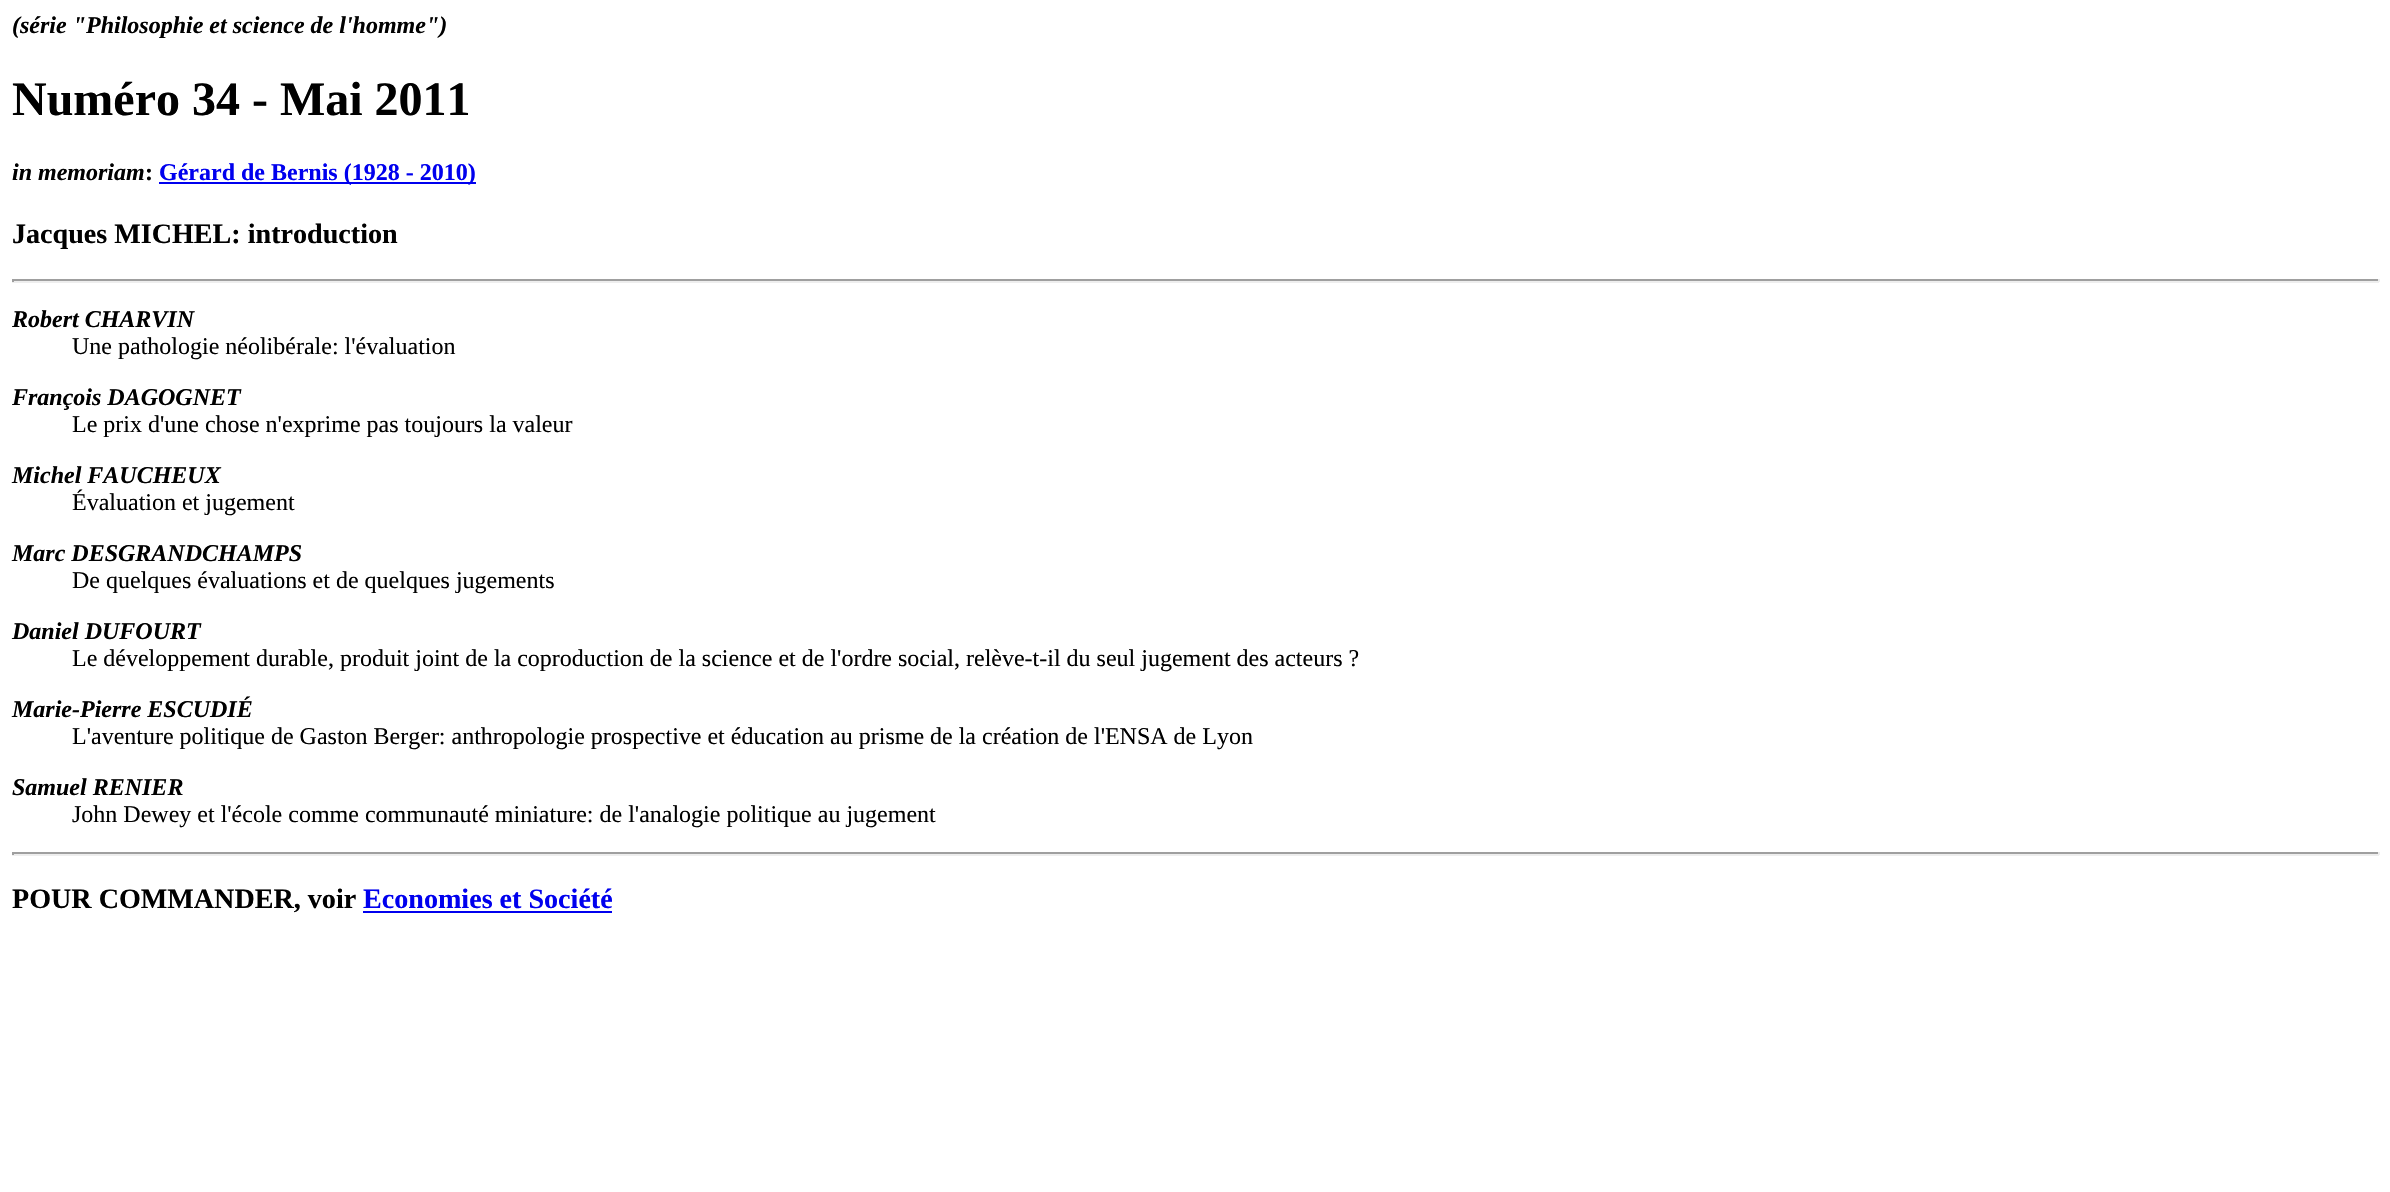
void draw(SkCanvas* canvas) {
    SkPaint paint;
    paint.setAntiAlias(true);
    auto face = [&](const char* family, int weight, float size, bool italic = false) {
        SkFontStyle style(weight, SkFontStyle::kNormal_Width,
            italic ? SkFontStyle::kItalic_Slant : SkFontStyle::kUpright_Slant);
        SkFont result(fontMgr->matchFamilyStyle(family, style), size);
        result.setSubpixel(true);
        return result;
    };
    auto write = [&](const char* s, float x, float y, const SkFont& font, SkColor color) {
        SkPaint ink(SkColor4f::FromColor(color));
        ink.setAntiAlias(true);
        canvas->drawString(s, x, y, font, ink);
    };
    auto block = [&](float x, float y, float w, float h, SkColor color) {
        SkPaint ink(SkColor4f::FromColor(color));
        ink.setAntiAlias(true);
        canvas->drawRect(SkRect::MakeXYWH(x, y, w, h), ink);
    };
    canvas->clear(SK_ColorWHITE);
    auto kFont1 = face("Liberation Serif", 700, 24, true);
    write("(série \"Philosophie et science de l'homme\")", 12, 33, kFont1, SK_ColorBLACK);
    auto kFont2 = face("Liberation Serif", 700, 48);
    write("Numéro 34 - Mai 2011", 12, 115, kFont2, SK_ColorBLACK);
    write("in memoriam", 12, 180, kFont1, SK_ColorBLACK);
    auto kFont3 = face("Liberation Serif", 700, 24);
    write(":", 145, 180, kFont3, SK_ColorBLACK);
    block(159, 182, 317, 2, SkColorSetRGB(0, 0, 238));
    write("Gérard de Bernis (1928 - 2010)", 159, 180, kFont3, SkColorSetRGB(0, 0, 238));
    auto kFont4 = face("Liberation Serif", 700, 28.1f);
    write("Jacques MICHEL: introduction", 12, 243, kFont4, SK_ColorBLACK);
    block(12, 279, 2367, 2, SkColorSetRGB(159, 159, 159));
    block(2378, 279, 2, 3, SkColorSetRGB(238, 238, 238));
    block(12, 281, 2367, 2, SkColorSetRGB(238, 238, 238));
    block(12, 279, 2, 3, SkColorSetRGB(159, 159, 159));
    write("Robert CHARVIN", 12, 327, kFont1, SK_ColorBLACK);
    auto kFont5 = face("Liberation Serif", 400, 24);
    write("Une pathologie néolibérale: l'évaluation", 72, 354, kFont5, SK_ColorBLACK);
    write("François DAGOGNET", 12, 405, kFont1, SK_ColorBLACK);
    write("Le prix d'une chose n'exprime pas toujours la valeur", 72, 432, kFont5, SK_ColorBLACK);
    write("Michel FAUCHEUX", 12, 483, kFont1, SK_ColorBLACK);
    write("Évaluation et jugement", 72, 510, kFont5, SK_ColorBLACK);
    write("Marc DESGRANDCHAMPS", 12, 561, kFont1, SK_ColorBLACK);
    write("De quelques évaluations et de quelques jugements", 72, 588, kFont5, SK_ColorBLACK);
    write("Daniel DUFOURT", 12, 639, kFont1, SK_ColorBLACK);
    write("Le développement durable, produit joint de la coproduction de la science et de l'ordre social, relève-t-il du seul jugement des acteurs ?", 72, 666, kFont5, SK_ColorBLACK);
    write("Marie-Pierre ESCUDIÉ", 12, 717, kFont1, SK_ColorBLACK);
    write("L'aventure politique de Gaston Berger: anthropologie prospective et éducation au prisme de la création de l'ENSA de Lyon", 72, 744, kFont5, SK_ColorBLACK);
    write("Samuel RENIER", 12, 795, kFont1, SK_ColorBLACK);
    write("John Dewey et l'école comme communauté miniature: de l'analogie politique au jugement", 72, 822, kFont5, SK_ColorBLACK);
    block(12, 852, 2367, 2, SkColorSetRGB(159, 159, 159));
    block(2378, 852, 2, 3, SkColorSetRGB(238, 238, 238));
    block(12, 854, 2367, 2, SkColorSetRGB(238, 238, 238));
    block(12, 852, 2, 3, SkColorSetRGB(159, 159, 159));
    write("POUR COMMANDER, voir", 12, 908, kFont4, SK_ColorBLACK);
    write("Economies et Société", 363, 908, kFont4, SkColorSetRGB(0, 0, 238));
    block(363, 911, 249, 2, SkColorSetRGB(0, 0, 238));
}
